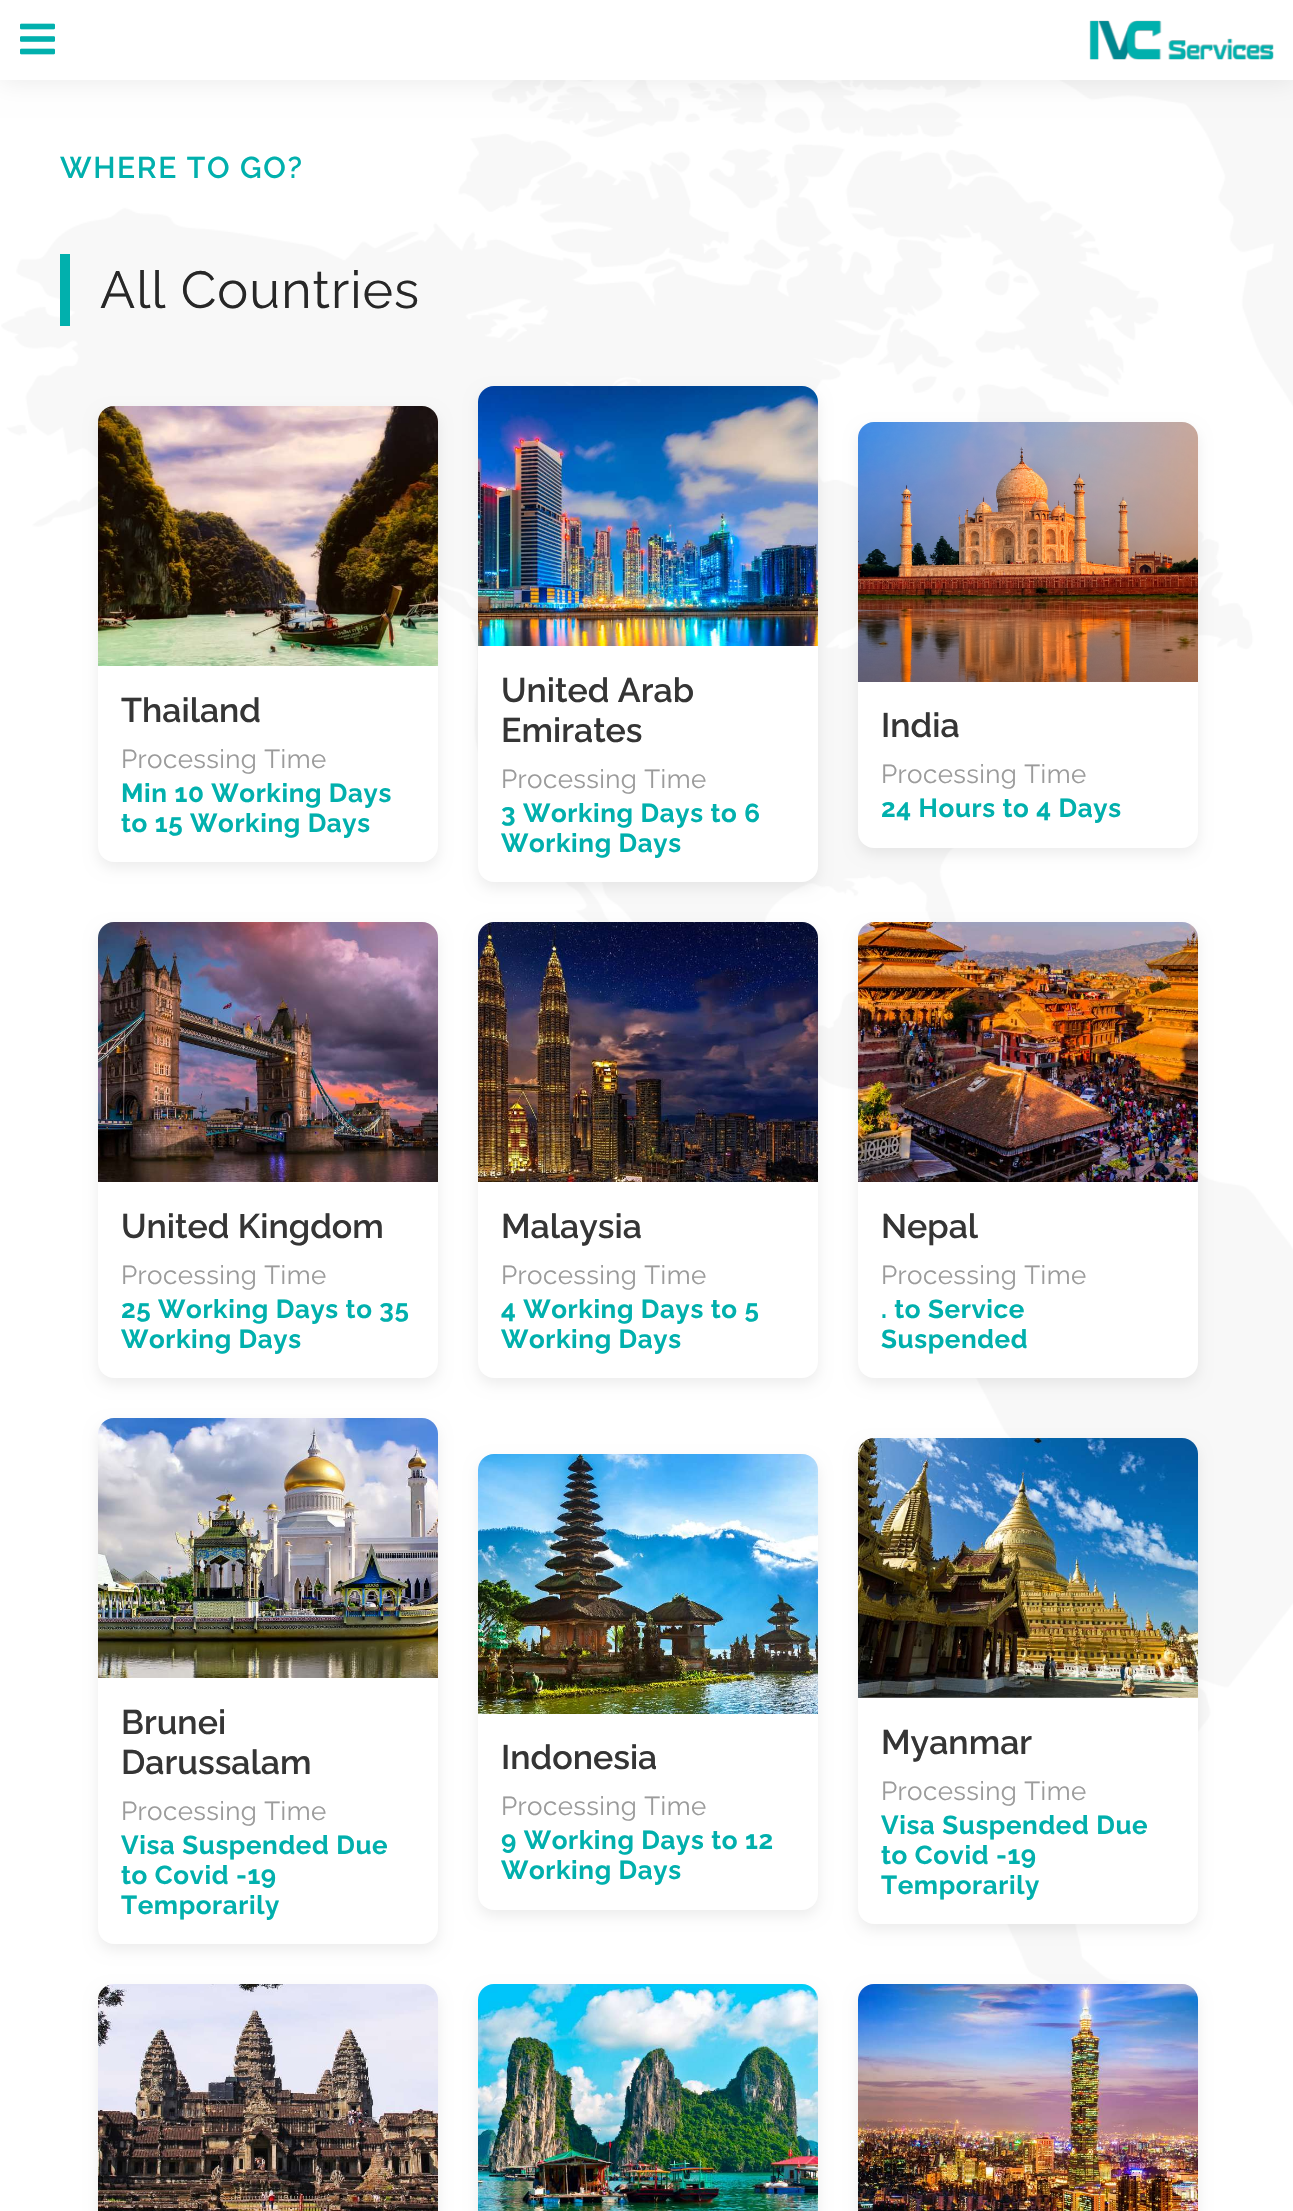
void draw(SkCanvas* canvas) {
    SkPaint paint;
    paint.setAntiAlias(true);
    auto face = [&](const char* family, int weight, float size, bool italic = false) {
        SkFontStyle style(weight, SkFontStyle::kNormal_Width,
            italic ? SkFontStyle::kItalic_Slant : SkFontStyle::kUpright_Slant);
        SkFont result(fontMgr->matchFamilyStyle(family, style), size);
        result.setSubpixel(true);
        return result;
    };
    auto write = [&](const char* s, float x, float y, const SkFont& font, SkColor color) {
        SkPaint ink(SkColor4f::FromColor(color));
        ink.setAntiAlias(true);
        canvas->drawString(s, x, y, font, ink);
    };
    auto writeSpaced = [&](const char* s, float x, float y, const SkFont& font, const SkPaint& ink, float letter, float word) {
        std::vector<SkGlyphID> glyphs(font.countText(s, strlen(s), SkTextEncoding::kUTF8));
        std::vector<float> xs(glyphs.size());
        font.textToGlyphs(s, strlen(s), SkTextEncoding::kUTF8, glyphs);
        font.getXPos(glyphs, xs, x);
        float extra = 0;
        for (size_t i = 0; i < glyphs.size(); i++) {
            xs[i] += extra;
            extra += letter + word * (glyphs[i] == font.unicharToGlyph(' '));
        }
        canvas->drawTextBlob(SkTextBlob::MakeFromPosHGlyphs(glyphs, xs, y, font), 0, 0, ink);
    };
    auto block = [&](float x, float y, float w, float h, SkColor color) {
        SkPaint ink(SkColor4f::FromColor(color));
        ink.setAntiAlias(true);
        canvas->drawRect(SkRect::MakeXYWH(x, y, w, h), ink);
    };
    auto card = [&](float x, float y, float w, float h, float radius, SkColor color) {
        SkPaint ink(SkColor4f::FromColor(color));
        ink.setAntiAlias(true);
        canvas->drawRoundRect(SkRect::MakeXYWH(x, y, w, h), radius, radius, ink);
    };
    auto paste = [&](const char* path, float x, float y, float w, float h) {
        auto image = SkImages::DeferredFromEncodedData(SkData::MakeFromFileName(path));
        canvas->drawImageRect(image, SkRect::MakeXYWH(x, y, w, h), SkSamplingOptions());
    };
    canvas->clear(SK_ColorWHITE);
    paste("pic3.png", 1, 80, 1292, 1904);
    paint.setColor(SkColorSetARGB(20, 0, 0, 0));
    paint.setMaskFilter(SkMaskFilter::MakeBlur(kNormal_SkBlurStyle, 12));
    canvas->drawRect(SkRect::MakeXYWH(0, 2, 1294, 80), paint);
    paint.setMaskFilter(nullptr);
    block(0, 0, 1293, 80, SK_ColorWHITE);
    paste("pic1.png", 20, 23, 35, 32);
    paste("pic2.png", 1089, 20, 185, 40);
    auto kFont1 = face("Raleway", 600, 30);
    paint.setColor(SkColorSetRGB(1, 176, 173));
    writeSpaced("WHERE TO GO?", 60, 178, kFont1, paint, 1.6f, 0);
    block(60, 254, 10, 72, SkColorSetRGB(1, 176, 173));
    auto kFont2 = face("Raleway", 400, 52);
    paint.setColor(SkColorSetRGB(39, 39, 39));
    writeSpaced("All Countries", 100, 308, kFont2, paint, 1, 0);
    paint.setColor(SkColorSetARGB(18, 0, 0, 0));
    paint.setMaskFilter(SkMaskFilter::MakeBlur(kNormal_SkBlurStyle, 7));
    canvas->drawRoundRect(SkRect::MakeXYWH(98, 412, 340, 456), 16, 16, paint);
    paint.setMaskFilter(nullptr);
    card(98, 406, 340, 456, 16, SK_ColorWHITE);
    paste("pic4.png", 98, 406, 340, 260);
    auto kFont3 = face("Raleway", 600, 34);
    write("Thailand", 121, 722, kFont3, SkColorSetRGB(53, 53, 53));
    auto kFont4 = face("Raleway", 400, 26);
    paint.setColor(SkColorSetRGB(155, 155, 155));
    writeSpaced("Processing Time", 121, 768, kFont4, paint, 0.4f, 0);
    auto kFont5 = face("Raleway", 700, 26);
    paint.setColor(SkColorSetRGB(1, 176, 173));
    writeSpaced("Min 10 Working Days", 121, 802, kFont5, paint, 0.6f, 0);
    writeSpaced("to 15 Working Days", 121, 832, kFont5, paint, 0.6f, 0);
    paint.setColor(SkColorSetARGB(18, 0, 0, 0));
    paint.setMaskFilter(SkMaskFilter::MakeBlur(kNormal_SkBlurStyle, 7));
    canvas->drawRoundRect(SkRect::MakeXYWH(478, 392, 340, 496), 16, 16, paint);
    paint.setMaskFilter(nullptr);
    card(478, 386, 340, 496, 16, SK_ColorWHITE);
    paste("pic5.png", 478, 386, 340, 260);
    write("United Arab", 501, 702, kFont3, SkColorSetRGB(53, 53, 53));
    write("Emirates", 501, 742, kFont3, SkColorSetRGB(53, 53, 53));
    paint.setColor(SkColorSetRGB(155, 155, 155));
    writeSpaced("Processing Time", 501, 788, kFont4, paint, 0.4f, 0);
    paint.setColor(SkColorSetRGB(1, 176, 173));
    writeSpaced("3 Working Days to 6", 501, 822, kFont5, paint, 0.6f, 0);
    writeSpaced("Working Days", 501, 852, kFont5, paint, 0.6f, 0);
    paint.setColor(SkColorSetARGB(18, 0, 0, 0));
    paint.setMaskFilter(SkMaskFilter::MakeBlur(kNormal_SkBlurStyle, 7));
    canvas->drawRoundRect(SkRect::MakeXYWH(858, 428, 340, 426), 16, 16, paint);
    paint.setMaskFilter(nullptr);
    card(858, 422, 340, 426, 16, SK_ColorWHITE);
    paste("pic6.png", 858, 422, 340, 260);
    write("India", 881, 737, kFont3, SkColorSetRGB(53, 53, 53));
    paint.setColor(SkColorSetRGB(155, 155, 155));
    writeSpaced("Processing Time", 881, 783, kFont4, paint, 0.4f, 0);
    paint.setColor(SkColorSetRGB(1, 176, 173));
    writeSpaced("24 Hours to 4 Days", 881, 817, kFont5, paint, 0.6f, 0);
    paint.setColor(SkColorSetARGB(18, 0, 0, 0));
    paint.setMaskFilter(SkMaskFilter::MakeBlur(kNormal_SkBlurStyle, 7));
    canvas->drawRoundRect(SkRect::MakeXYWH(98, 928, 340, 456), 16, 16, paint);
    paint.setMaskFilter(nullptr);
    card(98, 922, 340, 456, 16, SK_ColorWHITE);
    paste("pic7.png", 98, 922, 340, 260);
    write("United Kingdom", 121, 1238, kFont3, SkColorSetRGB(53, 53, 53));
    paint.setColor(SkColorSetRGB(155, 155, 155));
    writeSpaced("Processing Time", 121, 1284, kFont4, paint, 0.4f, 0);
    paint.setColor(SkColorSetRGB(1, 176, 173));
    writeSpaced("25 Working Days to 35", 121, 1318, kFont5, paint, 0.6f, 0);
    writeSpaced("Working Days", 121, 1348, kFont5, paint, 0.6f, 0);
    paint.setColor(SkColorSetARGB(18, 0, 0, 0));
    paint.setMaskFilter(SkMaskFilter::MakeBlur(kNormal_SkBlurStyle, 7));
    canvas->drawRoundRect(SkRect::MakeXYWH(478, 928, 340, 456), 16, 16, paint);
    paint.setMaskFilter(nullptr);
    card(478, 922, 340, 456, 16, SK_ColorWHITE);
    paste("pic8.png", 478, 922, 340, 260);
    write("Malaysia", 501, 1238, kFont3, SkColorSetRGB(53, 53, 53));
    paint.setColor(SkColorSetRGB(155, 155, 155));
    writeSpaced("Processing Time", 501, 1284, kFont4, paint, 0.4f, 0);
    paint.setColor(SkColorSetRGB(1, 176, 173));
    writeSpaced("4 Working Days to 5", 501, 1318, kFont5, paint, 0.6f, 0);
    writeSpaced("Working Days", 501, 1348, kFont5, paint, 0.6f, 0);
    paint.setColor(SkColorSetARGB(18, 0, 0, 0));
    paint.setMaskFilter(SkMaskFilter::MakeBlur(kNormal_SkBlurStyle, 7));
    canvas->drawRoundRect(SkRect::MakeXYWH(858, 928, 340, 456), 16, 16, paint);
    paint.setMaskFilter(nullptr);
    card(858, 922, 340, 456, 16, SK_ColorWHITE);
    paste("pic9.png", 858, 922, 340, 260);
    write("Nepal", 881, 1238, kFont3, SkColorSetRGB(53, 53, 53));
    paint.setColor(SkColorSetRGB(155, 155, 155));
    writeSpaced("Processing Time", 881, 1284, kFont4, paint, 0.4f, 0);
    paint.setColor(SkColorSetRGB(1, 176, 173));
    writeSpaced(". to Service", 881, 1318, kFont5, paint, 0.6f, 0);
    writeSpaced("Suspended", 881, 1348, kFont5, paint, 0.6f, 0);
    paint.setColor(SkColorSetARGB(18, 0, 0, 0));
    paint.setMaskFilter(SkMaskFilter::MakeBlur(kNormal_SkBlurStyle, 7));
    canvas->drawRoundRect(SkRect::MakeXYWH(98, 1424, 340, 526), 16, 16, paint);
    paint.setMaskFilter(nullptr);
    card(98, 1418, 340, 526, 16, SK_ColorWHITE);
    paste("pic10.png", 98, 1418, 340, 260);
    write("Brunei", 121, 1734, kFont3, SkColorSetRGB(53, 53, 53));
    write("Darussalam", 121, 1774, kFont3, SkColorSetRGB(53, 53, 53));
    paint.setColor(SkColorSetRGB(155, 155, 155));
    writeSpaced("Processing Time", 121, 1820, kFont4, paint, 0.4f, 0);
    paint.setColor(SkColorSetRGB(1, 176, 173));
    writeSpaced("Visa Suspended Due", 121, 1854, kFont5, paint, 0.6f, 0);
    writeSpaced("to Covid -19", 121, 1884, kFont5, paint, 0.6f, 0);
    writeSpaced("Temporarily", 121, 1914, kFont5, paint, 0.6f, 0);
    paint.setColor(SkColorSetARGB(18, 0, 0, 0));
    paint.setMaskFilter(SkMaskFilter::MakeBlur(kNormal_SkBlurStyle, 7));
    canvas->drawRoundRect(SkRect::MakeXYWH(478, 1460, 340, 456), 16, 16, paint);
    paint.setMaskFilter(nullptr);
    card(478, 1454, 340, 456, 16, SK_ColorWHITE);
    paste("pic11.png", 478, 1454, 340, 260);
    write("Indonesia", 501, 1769, kFont3, SkColorSetRGB(53, 53, 53));
    paint.setColor(SkColorSetRGB(155, 155, 155));
    writeSpaced("Processing Time", 501, 1815, kFont4, paint, 0.4f, 0);
    paint.setColor(SkColorSetRGB(1, 176, 173));
    writeSpaced("9 Working Days to 12", 501, 1849, kFont5, paint, 0.6f, 0);
    writeSpaced("Working Days", 501, 1879, kFont5, paint, 0.6f, 0);
    paint.setColor(SkColorSetARGB(18, 0, 0, 0));
    paint.setMaskFilter(SkMaskFilter::MakeBlur(kNormal_SkBlurStyle, 7));
    canvas->drawRoundRect(SkRect::MakeXYWH(858, 1444, 340, 486), 16, 16, paint);
    paint.setMaskFilter(nullptr);
    card(858, 1438, 340, 486, 16, SK_ColorWHITE);
    paste("pic12.png", 858, 1438, 340, 260);
    write("Myanmar", 881, 1754, kFont3, SkColorSetRGB(53, 53, 53));
    paint.setColor(SkColorSetRGB(155, 155, 155));
    writeSpaced("Processing Time", 881, 1800, kFont4, paint, 0.4f, 0);
    paint.setColor(SkColorSetRGB(1, 176, 173));
    writeSpaced("Visa Suspended Due", 881, 1834, kFont5, paint, 0.6f, 0);
    writeSpaced("to Covid -19", 881, 1864, kFont5, paint, 0.6f, 0);
    writeSpaced("Temporarily", 881, 1894, kFont5, paint, 0.6f, 0);
    paint.setColor(SkColorSetARGB(18, 0, 0, 0));
    paint.setMaskFilter(SkMaskFilter::MakeBlur(kNormal_SkBlurStyle, 7));
    canvas->drawRoundRect(SkRect::MakeXYWH(98, 1990, 340, 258), 16, 16, paint);
    paint.setMaskFilter(nullptr);
    paste("pic13.png", 98, 1984, 340, 227);
    paint.setMaskFilter(SkMaskFilter::MakeBlur(kNormal_SkBlurStyle, 7));
    canvas->drawRoundRect(SkRect::MakeXYWH(478, 1990, 340, 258), 16, 16, paint);
    paint.setMaskFilter(nullptr);
    paste("pic14.png", 478, 1984, 340, 227);
    paint.setMaskFilter(SkMaskFilter::MakeBlur(kNormal_SkBlurStyle, 7));
    canvas->drawRoundRect(SkRect::MakeXYWH(858, 1990, 340, 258), 16, 16, paint);
    paint.setMaskFilter(nullptr);
    card(858, 1984, 340, 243, 16, SK_ColorWHITE);
    paste("pic15.png", 858, 1984, 340, 227);
}
